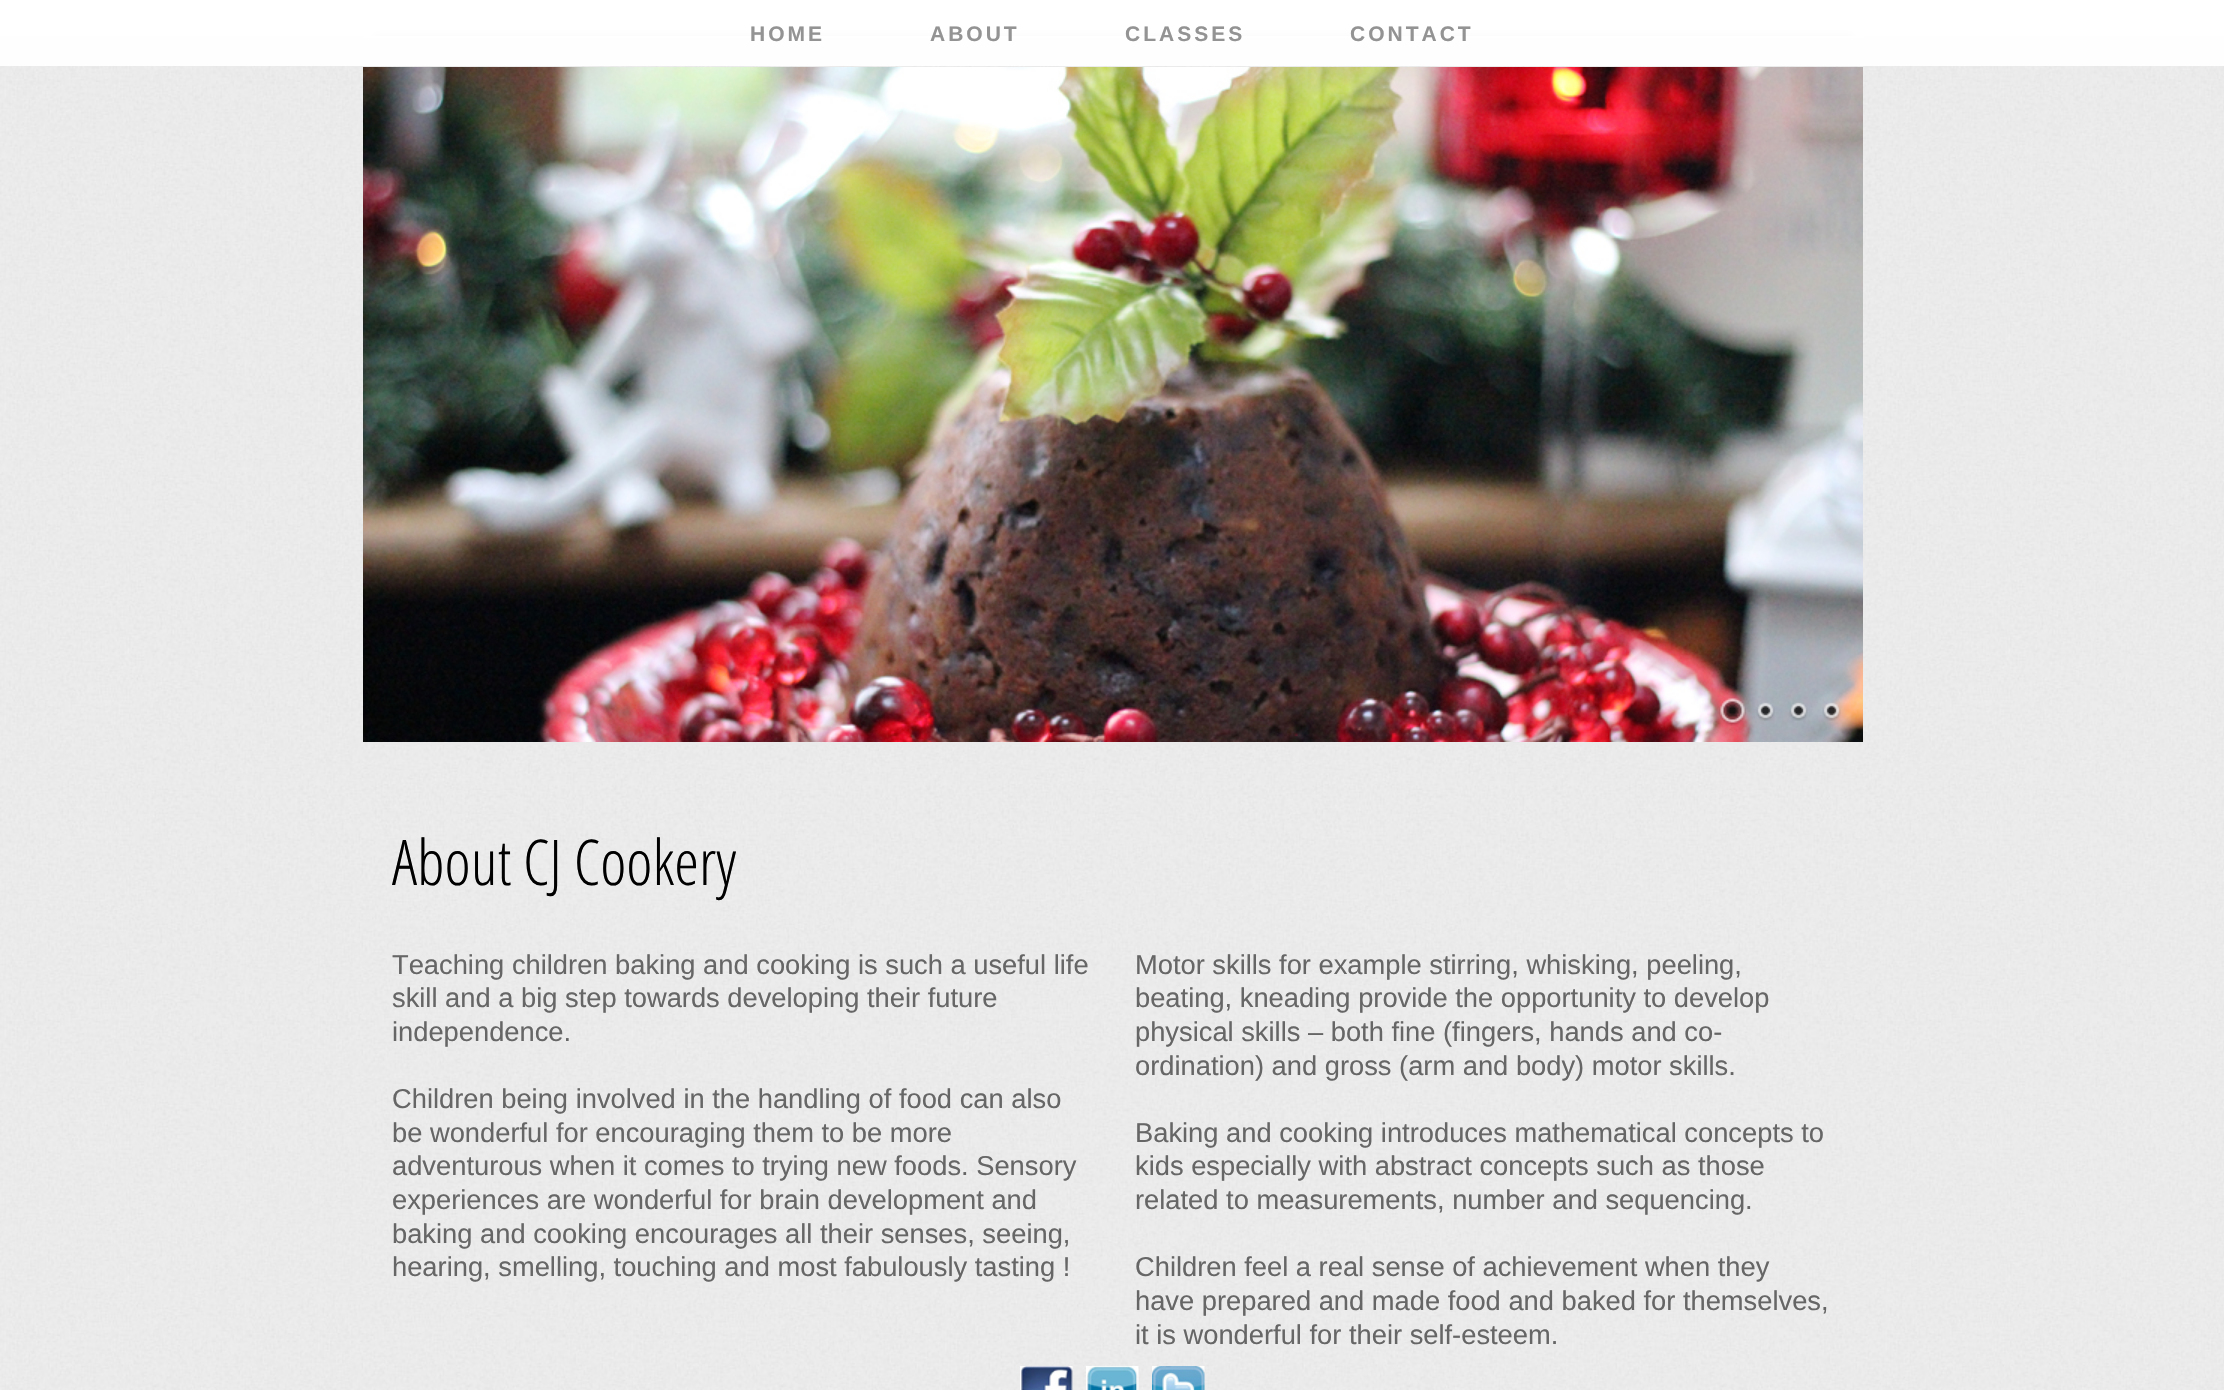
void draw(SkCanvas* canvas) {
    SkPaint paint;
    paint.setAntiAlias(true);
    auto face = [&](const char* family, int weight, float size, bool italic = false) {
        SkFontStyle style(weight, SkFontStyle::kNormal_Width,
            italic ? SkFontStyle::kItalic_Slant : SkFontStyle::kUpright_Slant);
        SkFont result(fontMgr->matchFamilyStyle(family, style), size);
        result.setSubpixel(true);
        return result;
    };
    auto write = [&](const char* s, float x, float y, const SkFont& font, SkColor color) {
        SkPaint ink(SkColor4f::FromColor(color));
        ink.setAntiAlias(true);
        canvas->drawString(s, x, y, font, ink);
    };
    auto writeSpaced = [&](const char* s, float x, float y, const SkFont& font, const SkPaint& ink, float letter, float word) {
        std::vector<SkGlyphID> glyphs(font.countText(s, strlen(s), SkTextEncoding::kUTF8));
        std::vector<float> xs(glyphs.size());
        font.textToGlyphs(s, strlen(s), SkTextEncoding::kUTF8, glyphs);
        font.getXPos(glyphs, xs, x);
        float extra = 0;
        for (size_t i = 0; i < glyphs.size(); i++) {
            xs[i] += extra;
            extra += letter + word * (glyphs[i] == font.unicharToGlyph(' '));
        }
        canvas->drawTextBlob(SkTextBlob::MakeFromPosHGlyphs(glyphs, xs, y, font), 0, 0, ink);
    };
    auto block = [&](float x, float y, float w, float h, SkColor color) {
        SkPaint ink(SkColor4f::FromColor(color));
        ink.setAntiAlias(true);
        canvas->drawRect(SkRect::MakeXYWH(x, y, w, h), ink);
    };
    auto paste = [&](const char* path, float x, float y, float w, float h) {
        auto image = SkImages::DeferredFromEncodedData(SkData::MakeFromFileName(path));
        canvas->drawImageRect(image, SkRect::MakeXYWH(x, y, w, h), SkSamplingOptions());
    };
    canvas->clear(SK_ColorWHITE);
    paste("pic1.png", 0, 36, 2224, 1354);
    canvas->save();
    canvas->clipRect(SkRect::MakeXYWH(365, 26, 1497, 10));
    paint.setColor(SkColorSetRGB(153, 153, 153));
    paint.setMaskFilter(SkMaskFilter::MakeBlur(kNormal_SkBlurStyle, 5));
    canvas->drawRect(SkRect::MakeXYWH(374, 36, 1479, 762), paint);
    paint.setMaskFilter(nullptr);
    canvas->restore();
    block(363, 36, 1500, 2, SK_ColorWHITE);
    block(0, 26, 2224, 40, SkColorSetARGB(237, 255, 255, 255));
    auto kFont1 = face("Liberation Sans", 700, 21);
    paint.setColor(SkColorSetRGB(147, 147, 147));
    writeSpaced("HOME", 750, 41, kFont1, paint, 3, 0);
    writeSpaced("ABOUT", 930, 41, kFont1, paint, 3, 0);
    writeSpaced("CLASSES", 1125, 41, kFont1, paint, 3, 0);
    writeSpaced("CONTACT", 1350, 41, kFont1, paint, 3, 0);
    paste("pic2.png", 363, 67, 1500, 675);
    block(374, 743, 1463, 2, SkColorSetRGB(234, 234, 234));
    paste("pic3.png", 1719, 698, 27, 28);
    paste("pic4.png", 1756, 702, 19, 19);
    paste("pic5.png", 1789, 702, 19, 19);
    paste("pic6.png", 1822, 702, 19, 19);
    auto kFont2 = face("Open Sans Condensed", 300, 63);
    write("About CJ Cookery", 392, 885, kFont2, SK_ColorBLACK);
    auto kFont3 = face("Liberation Sans", 400, 27.3f);
    write("Teaching children baking and cooking is such a useful life", 392, 974, kFont3, SkColorSetRGB(102, 102, 102));
    write("skill and a big step towards developing their future", 392, 1007, kFont3, SkColorSetRGB(102, 102, 102));
    write("independence.", 392, 1041, kFont3, SkColorSetRGB(102, 102, 102));
    write("Children being involved in the handling of food can also", 392, 1108, kFont3, SkColorSetRGB(102, 102, 102));
    write("be wonderful for encouraging them to be more", 392, 1142, kFont3, SkColorSetRGB(102, 102, 102));
    write("adventurous when it comes to trying new foods. Sensory", 392, 1175, kFont3, SkColorSetRGB(102, 102, 102));
    write("experiences are wonderful for brain development and", 392, 1209, kFont3, SkColorSetRGB(102, 102, 102));
    write("baking and cooking encourages all their senses, seeing,", 392, 1243, kFont3, SkColorSetRGB(102, 102, 102));
    write("hearing, smelling, touching and most fabulously tasting !", 392, 1276, kFont3, SkColorSetRGB(102, 102, 102));
    write("Motor skills for example stirring, whisking, peeling,", 1135, 974, kFont3, SkColorSetRGB(102, 102, 102));
    write("beating, kneading provide the opportunity to develop", 1135, 1007, kFont3, SkColorSetRGB(102, 102, 102));
    write("physical skills – both fine (fingers, hands and co-", 1135, 1041, kFont3, SkColorSetRGB(102, 102, 102));
    write("ordination) and gross (arm and body) motor skills.", 1135, 1075, kFont3, SkColorSetRGB(102, 102, 102));
    write("Baking and cooking introduces mathematical concepts to", 1135, 1142, kFont3, SkColorSetRGB(102, 102, 102));
    write("kids especially with abstract concepts such as those", 1135, 1175, kFont3, SkColorSetRGB(102, 102, 102));
    write("related to measurements, number and sequencing.", 1135, 1209, kFont3, SkColorSetRGB(102, 102, 102));
    write("Children feel a real sense of achievement when they", 1135, 1276, kFont3, SkColorSetRGB(102, 102, 102));
    write("have prepared and made food and baked for themselves,", 1135, 1310, kFont3, SkColorSetRGB(102, 102, 102));
    write("it is wonderful for their self-esteem.", 1135, 1344, kFont3, SkColorSetRGB(102, 102, 102));
    paste("pic7.png", 1020, 1366, 53, 24);
    paste("pic8.png", 1086, 1366, 53, 24);
    paste("pic9.png", 1152, 1366, 53, 24);
}
